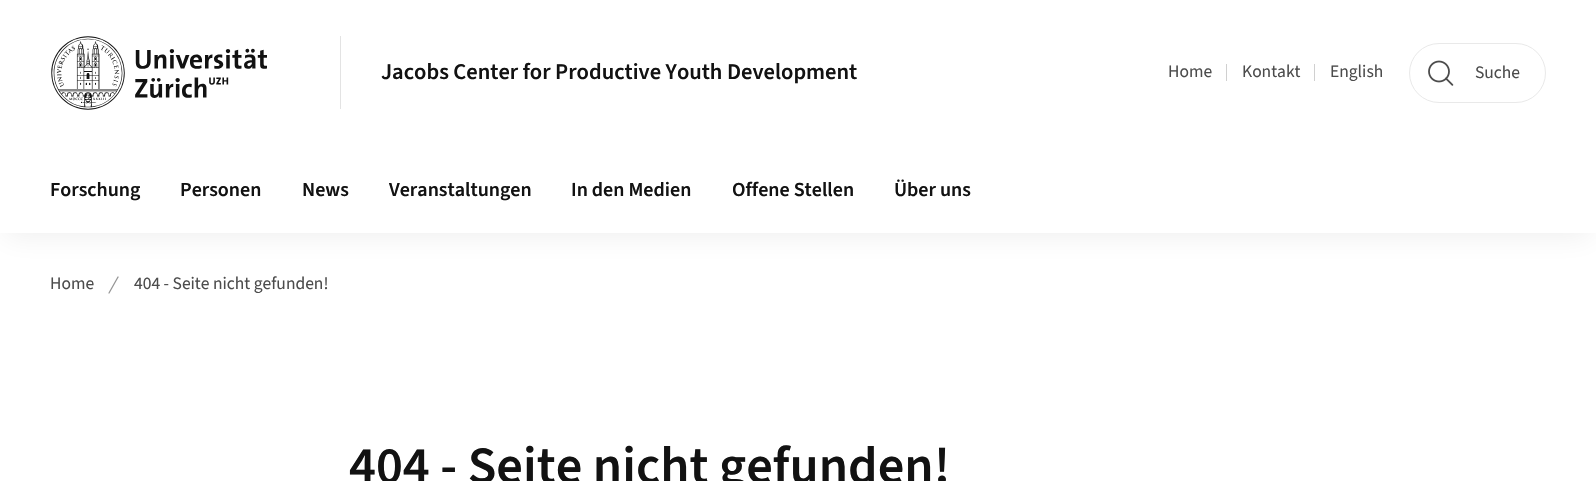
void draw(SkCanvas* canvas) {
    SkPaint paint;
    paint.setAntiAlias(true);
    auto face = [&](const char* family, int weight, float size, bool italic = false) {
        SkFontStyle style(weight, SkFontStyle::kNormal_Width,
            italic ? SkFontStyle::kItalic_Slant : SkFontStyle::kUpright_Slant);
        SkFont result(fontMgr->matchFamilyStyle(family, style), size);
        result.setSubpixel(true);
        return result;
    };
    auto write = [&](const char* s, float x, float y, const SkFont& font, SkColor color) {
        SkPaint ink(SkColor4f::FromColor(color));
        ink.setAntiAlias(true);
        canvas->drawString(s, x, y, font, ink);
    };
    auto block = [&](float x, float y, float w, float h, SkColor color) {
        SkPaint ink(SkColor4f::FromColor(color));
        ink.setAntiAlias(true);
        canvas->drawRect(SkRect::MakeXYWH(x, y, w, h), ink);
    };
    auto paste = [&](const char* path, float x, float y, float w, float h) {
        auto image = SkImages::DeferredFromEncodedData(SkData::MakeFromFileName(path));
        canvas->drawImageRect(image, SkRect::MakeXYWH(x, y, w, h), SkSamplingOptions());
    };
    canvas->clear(SK_ColorWHITE);
    paint.setStyle(SkPaint::kStroke_Style);
    paint.setStrokeWidth(1.2f);
    paint.setStrokeCap(SkPaint::kRound_Cap);
    paint.setColor(SkColorSetRGB(148, 148, 148));
    canvas->drawPath(SkPathBuilder().moveTo(109, 293).lineTo(118, 277).detach(), paint);
    paint.setStyle(SkPaint::kFill_Style);
    paint.setColor(SkColorSetARGB(18, 18, 18, 18));
    paint.setMaskFilter(SkMaskFilter::MakeBlur(kNormal_SkBlurStyle, 14));
    canvas->drawRect(SkRect::MakeXYWH(5, 14, 1586, 222), paint);
    paint.setMaskFilter(nullptr);
    block(0, 0, 1596, 233, SK_ColorWHITE);
    paste("pic1.png", 51, 36, 216, 74);
    block(340, 36, 1, 73, SkColorSetRGB(227, 227, 227));
    auto kFont1 = face("Source Sans 3", 600, 22.5f);
    write("Jacobs Center for Productive Youth Development", 381, 79, kFont1, SkColorSetRGB(18, 18, 18));
    auto kFont2 = face("Source Sans 3", 400, 17.5f);
    write("Home", 1168, 77, kFont2, SkColorSetRGB(76, 76, 76));
    block(1226, 64, 1, 17, SkColorSetRGB(208, 208, 208));
    write("Kontakt", 1242, 77, kFont2, SkColorSetRGB(76, 76, 76));
    block(1314, 64, 1, 17, SkColorSetRGB(208, 208, 208));
    write("English", 1330, 77, kFont2, SkColorSetRGB(76, 76, 76));
    paint.setStyle(SkPaint::kStroke_Style);
    paint.setStrokeWidth(1);
    paint.setStrokeCap(SkPaint::kButt_Cap);
    paint.setColor(SkColorSetRGB(233, 233, 233));
    canvas->drawRoundRect(SkRect::MakeXYWH(1409.5f, 43.5f, 136, 59), 29.5f, 29.5f, paint);
    paste("pic2.png", 1428, 60, 26, 26);
    write("Suche", 1475, 78, kFont2, SkColorSetRGB(76, 76, 76));
    auto kFont3 = face("Source Sans 3", 600, 20);
    write("Forschung", 50, 196, kFont3, SkColorSetRGB(18, 18, 18));
    write("Personen", 180, 196, kFont3, SkColorSetRGB(18, 18, 18));
    write("News", 302, 196, kFont3, SkColorSetRGB(18, 18, 18));
    write("Veranstaltungen", 389, 196, kFont3, SkColorSetRGB(18, 18, 18));
    write("In den Medien", 571, 196, kFont3, SkColorSetRGB(18, 18, 18));
    write("Offene Stellen", 732, 196, kFont3, SkColorSetRGB(18, 18, 18));
    write("Über uns", 894, 196, kFont3, SkColorSetRGB(18, 18, 18));
    write("Home", 50, 289, kFont2, SkColorSetRGB(76, 76, 76));
    write("404 - Seite nicht gefunden!", 134, 289, kFont2, SkColorSetRGB(76, 76, 76));
    auto kFont4 = face("Source Sans 3", 600, 52.5f);
    write("404 - Seite nicht gefunden!", 349, 483, kFont4, SkColorSetRGB(18, 18, 18));
}
